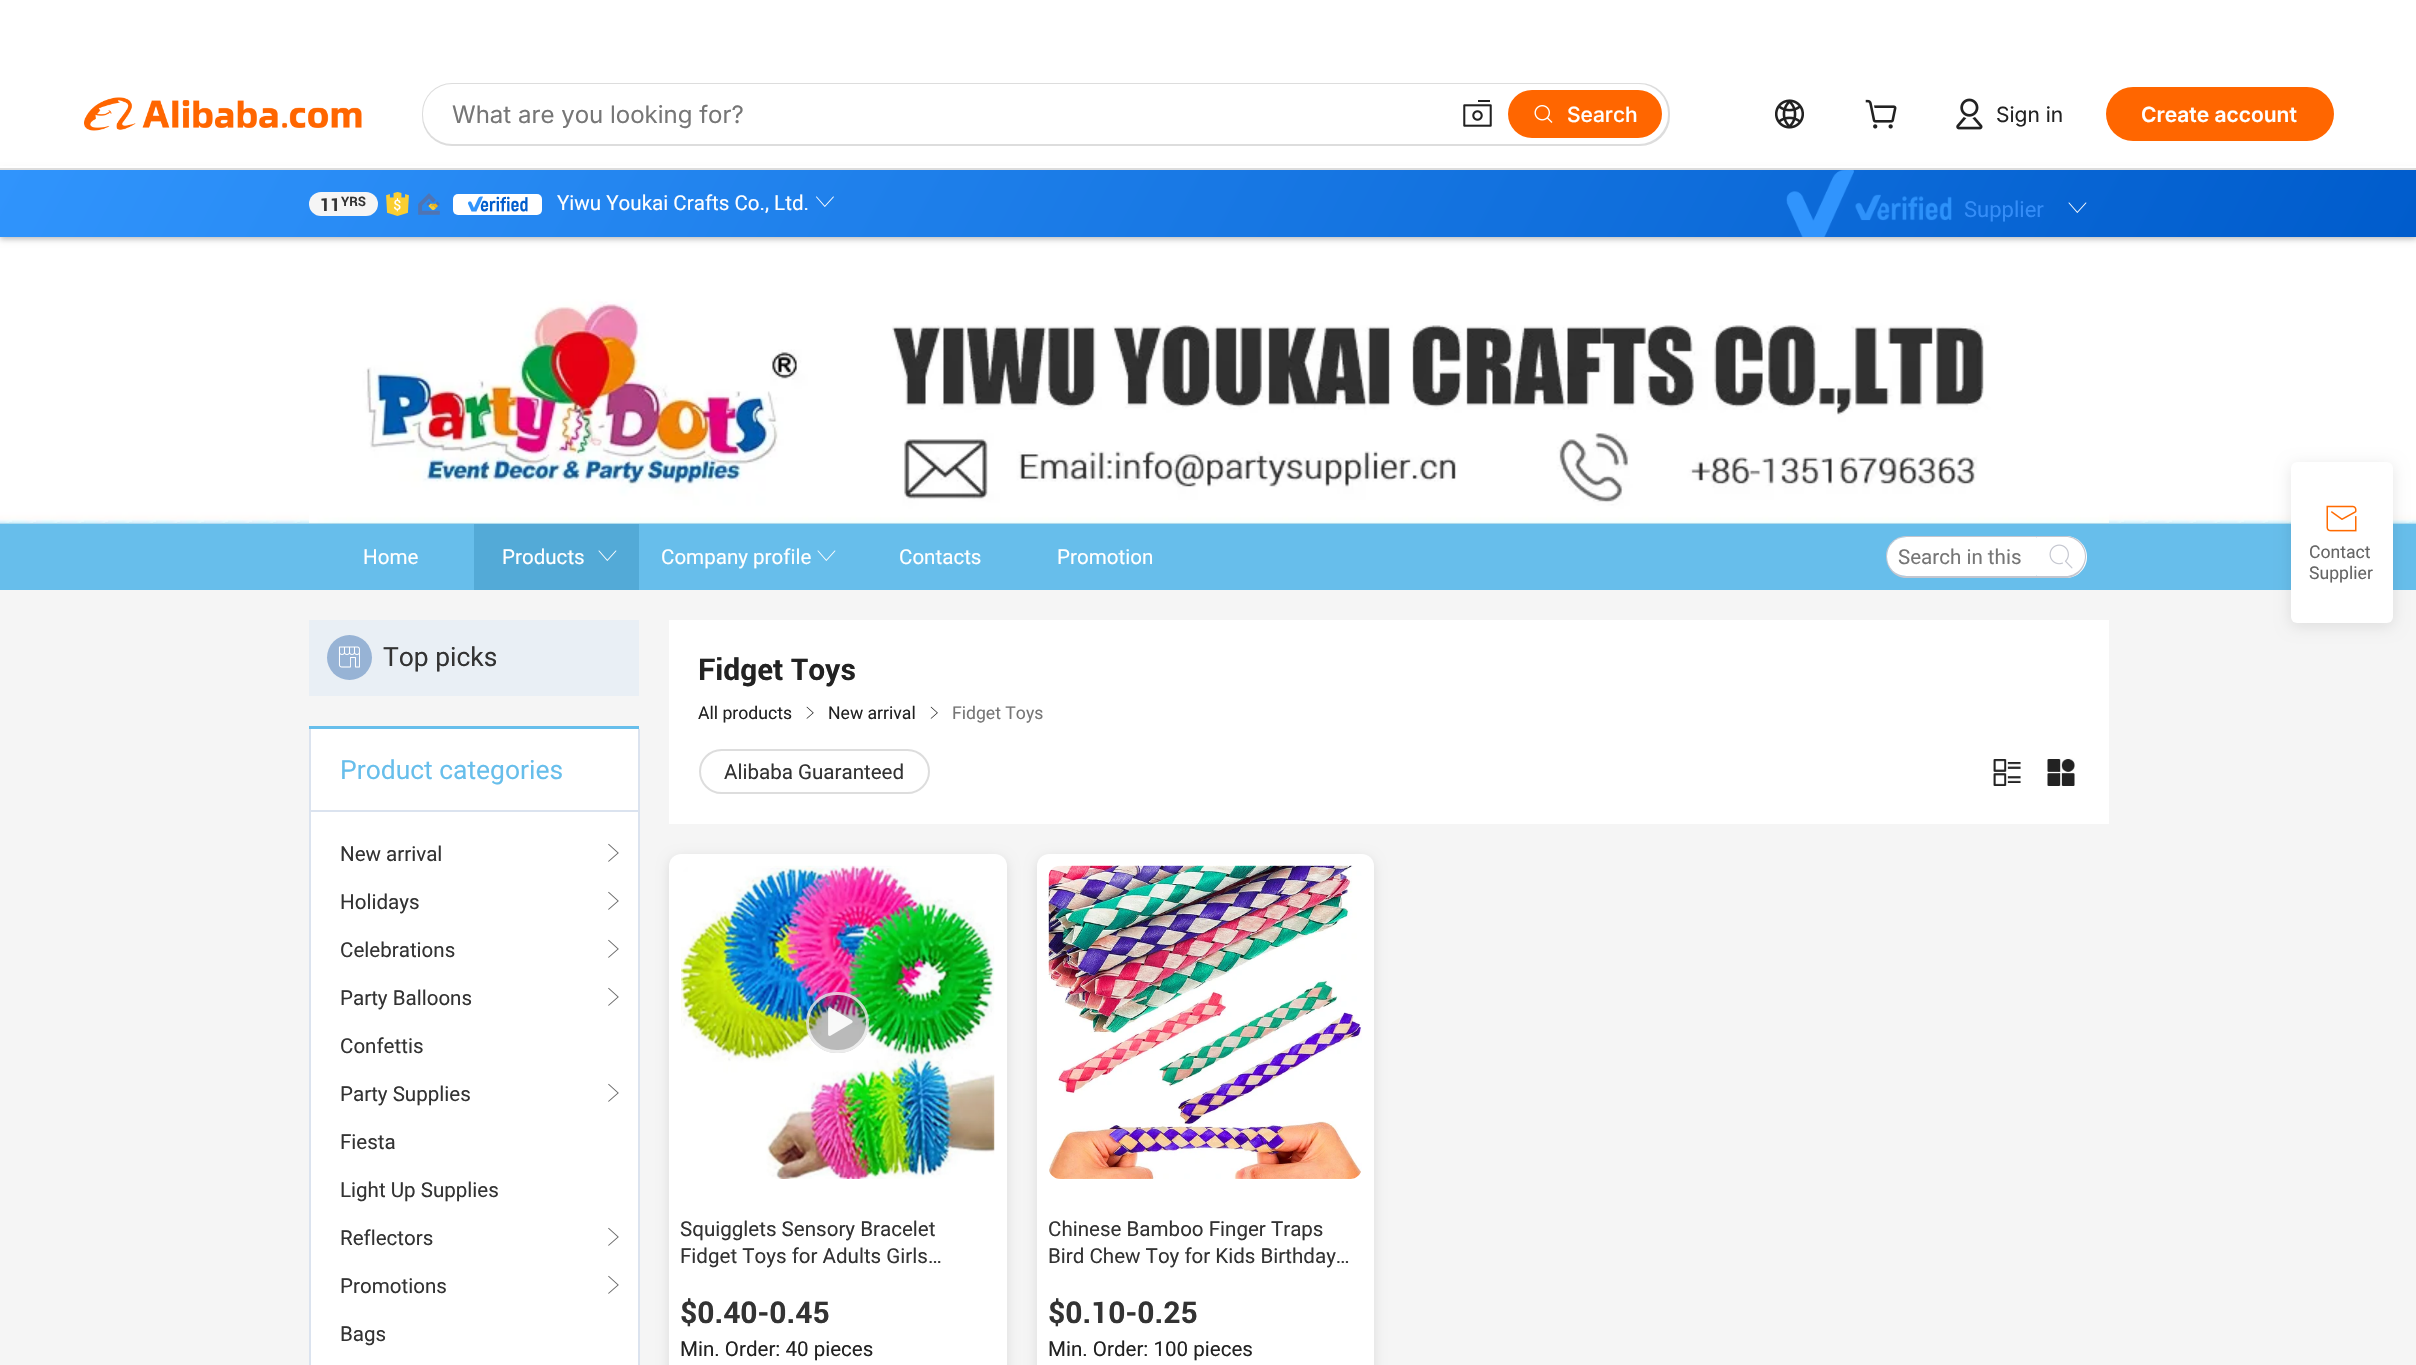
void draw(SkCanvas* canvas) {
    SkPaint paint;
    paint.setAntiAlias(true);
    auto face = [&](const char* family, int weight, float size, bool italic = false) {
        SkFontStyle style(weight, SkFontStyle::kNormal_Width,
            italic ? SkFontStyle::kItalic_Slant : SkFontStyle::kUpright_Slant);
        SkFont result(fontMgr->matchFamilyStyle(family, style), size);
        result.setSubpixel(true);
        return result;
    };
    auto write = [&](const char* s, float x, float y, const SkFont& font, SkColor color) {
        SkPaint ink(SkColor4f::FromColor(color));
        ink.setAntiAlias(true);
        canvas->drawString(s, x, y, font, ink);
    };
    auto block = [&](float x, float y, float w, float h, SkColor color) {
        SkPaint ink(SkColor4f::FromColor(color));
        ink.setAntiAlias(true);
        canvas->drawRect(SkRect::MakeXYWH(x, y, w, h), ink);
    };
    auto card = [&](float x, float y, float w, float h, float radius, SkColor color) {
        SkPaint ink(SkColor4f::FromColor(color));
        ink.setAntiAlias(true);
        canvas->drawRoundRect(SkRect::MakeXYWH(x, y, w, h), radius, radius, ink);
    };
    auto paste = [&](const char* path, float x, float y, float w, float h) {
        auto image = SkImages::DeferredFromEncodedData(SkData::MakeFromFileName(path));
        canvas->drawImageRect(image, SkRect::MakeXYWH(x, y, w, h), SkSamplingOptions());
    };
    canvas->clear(SK_ColorWHITE);
    paint.setColor(SkColorSetARGB(71, 0, 0, 0));
    paint.setMaskFilter(SkMaskFilter::MakeBlur(kNormal_SkBlurStyle, 3));
    canvas->drawRect(SkRect::MakeXYWH(0, 171, 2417, 68), paint);
    paint.setMaskFilter(nullptr);
    block(0, 166, 2416, 2, SK_ColorWHITE);
    block(0, 168, 2416, 2, SkColorSetRGB(221, 221, 221));
    paste("pic1.png", 84, 97, 278, 34);
    card(422, 83, 1248, 63, 30, SkColorSetRGB(221, 221, 221));
    card(423, 84, 1245, 60, 29, SK_ColorWHITE);
    auto kFont1 = face("Inter", 400, 24);
    write("What are you looking for?", 452, 123, kFont1, SkColorSetRGB(118, 118, 118));
    paste("pic2.png", 1463, 100, 29, 27);
    card(1508, 90, 154, 48, 24, SkColorSetRGB(255, 102, 0));
    paste("pic3.png", 1534, 105, 19, 18);
    auto kFont2 = face("Inter", 500, 21);
    write("Search", 1567, 122, kFont2, SK_ColorWHITE);
    paste("pic4.png", 1775, 99, 29, 30);
    paste("pic5.png", 1865, 99, 32, 30);
    paste("pic6.png", 1956, 98, 27, 32);
    auto kFont3 = face("Inter", 400, 21);
    write("Sign in", 1996, 122, kFont3, SkColorSetRGB(34, 34, 34));
    card(2106, 87, 228, 54, 27, SkColorSetRGB(255, 102, 0));
    auto kFont4 = face("Inter", 600, 21);
    write("Create account", 2141, 122, kFont4, SK_ColorWHITE);
    {
        const SkColor colors[] = {SkColorSetRGB(48, 148, 252), SkColorSetRGB(0, 92, 204)};
        const float stops[] = {0, 1};
        const SkPoint ends[] = {{252, -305}, {2164, 712}};
        paint.setShader(SkGradientShader::MakeLinear(ends, colors, stops, 2, SkTileMode::kClamp));
        paint.setAlpha(255);
    }
    canvas->drawRect(SkRect::MakeXYWH(0, 170, 2416, 67), paint);
    card(309, 192, 69, 24, 12, SkColorSetRGB(245, 245, 245));
    auto kFont5 = face("Roboto", 700, 18);
    write("11", 320, 211, kFont5, SkColorSetRGB(51, 51, 51));
    auto kFont6 = face("Roboto", 700, 13);
    write("YRS", 341, 206, kFont6, SkColorSetRGB(51, 51, 51));
    paste("pic7.png", 386, 192, 23, 24);
    paste("pic8.png", 418, 193, 22, 22);
    card(453, 194, 89, 21, 5, SK_ColorWHITE);
    paste("pic9.png", 468, 196, 60, 16);
    auto kFont7 = face("Roboto", 400, 21);
    write("Yiwu Youkai Crafts Co., Ltd.", 557, 210, kFont7, SK_ColorWHITE);
    paste("pic10.png", 816, 196, 18, 11);
    paste("pic11.png", 1786, 170, 166, 67);
    auto kFont8 = face("Roboto", 400, 22.5f);
    write("Supplier", 1964, 217, kFont8, SkColorSetRGB(52, 141, 248));
    paste("pic12.png", 2068, 202, 19, 11);
    paste("pic17.png", 0, 299, 2416, 225);
    paste("pic13.png", 309, 299, 1800, 225);
    block(0, 524, 2416, 66, SkColorSetRGB(103, 190, 235));
    write("Home", 363, 564, kFont7, SK_ColorWHITE);
    block(474, 524, 165, 66, SkColorSetRGB(83, 170, 215));
    write("Products", 502, 564, kFont7, SK_ColorWHITE);
    paste("pic14.png", 598, 550, 19, 11);
    write("Company profile", 661, 564, kFont7, SK_ColorWHITE);
    paste("pic15.png", 817, 550, 19, 11);
    write("Contacts", 899, 564, kFont7, SK_ColorWHITE);
    write("Promotion", 1057, 564, kFont7, SK_ColorWHITE);
    paint.setShader(nullptr);
    paint.setColor(SkColorSetRGB(196, 198, 207));
    canvas->drawPath(SkPathBuilder(SkPathFillType::kEvenOdd).moveTo(1906, 536).lineTo(2037, 536).lineTo(2037, 578).lineTo(1906, 578).cubicTo(1895, 578, 1886, 568, 1886, 556).cubicTo(1886, 545, 1895, 536, 1906, 536).close().moveTo(1906, 537).lineTo(2037, 537).lineTo(2037, 576).lineTo(1906, 576).cubicTo(1896, 576, 1887, 567, 1887, 556).cubicTo(1887, 546, 1896, 537, 1906, 537).close().detach(), paint);
    paint.setColor(SK_ColorWHITE);
    canvas->drawPath(SkPathBuilder().moveTo(1906.5f, 537).lineTo(2036, 537).cubicTo(2036.5f, 537, 2037, 537.5f, 2037, 538).lineTo(2037, 575).cubicTo(2037, 575.5f, 2036.5f, 576, 2036, 576).lineTo(1906.5f, 576).cubicTo(1895.5f, 576, 1887, 567.5f, 1887, 556.5f).cubicTo(1887, 545.5f, 1895.5f, 537, 1906.5f, 537).close().detach(), paint);
    write("Search in this", 1898, 564, kFont7, SkColorSetRGB(118, 118, 118));
    canvas->drawPath(SkPathBuilder().moveTo(2037, 536).lineTo(2066, 536).cubicTo(2077.5f, 536, 2087, 545.5f, 2087, 557).cubicTo(2087, 568.5f, 2077.5f, 578, 2066, 578).lineTo(2037, 578).close().detach(), paint);
    paint.setColor(SkColorSetRGB(196, 198, 207));
    canvas->drawPath(SkPathBuilder(SkPathFillType::kEvenOdd).moveTo(2037, 536).lineTo(2066, 536).cubicTo(2077, 536, 2086, 545, 2086, 556).cubicTo(2086, 568, 2077, 578, 2066, 578).lineTo(2037, 578).close().moveTo(2037, 537).lineTo(2066, 537).cubicTo(2076, 537, 2085, 546, 2085, 556).cubicTo(2085, 567, 2076, 576, 2066, 576).lineTo(2037, 576).close().detach(), paint);
    paste("pic16.png", 2049, 544, 24, 25);
    block(0, 590, 2416, 775, SkColorSetRGB(245, 245, 245));
    block(309, 620, 330, 76, SkColorSetRGB(233, 239, 245));
    paint.setColor(SkColorSetRGB(151, 179, 213));
    canvas->drawCircle(349.5f, 657.5f, 22.5f, paint);
    paste("pic18.png", 338, 646, 22, 22);
    auto kFont9 = face("Roboto", 400, 27);
    write("Top picks", 383, 666, kFont9, SkColorSetRGB(51, 51, 51));
    block(311, 729, 327, 636, SK_ColorWHITE);
    block(309, 726, 330, 3, SkColorSetRGB(103, 190, 235));
    block(638, 729, 2, 636, SkColorSetRGB(219, 227, 239));
    block(309, 729, 2, 636, SkColorSetRGB(219, 227, 239));
    block(311, 810, 327, 2, SkColorSetRGB(219, 227, 239));
    write("Product categories", 340, 779, kFont9, SkColorSetRGB(103, 190, 235));
    write("New arrival", 340, 861, kFont7, SkColorSetRGB(51, 51, 51));
    paste("pic19.png", 608, 843, 11, 19);
    write("Holidays", 340, 909, kFont7, SkColorSetRGB(51, 51, 51));
    paste("pic19.png", 608, 891, 11, 19);
    write("Celebrations", 340, 957, kFont7, SkColorSetRGB(51, 51, 51));
    paste("pic19.png", 608, 939, 11, 19);
    write("Party Balloons", 340, 1005, kFont7, SkColorSetRGB(51, 51, 51));
    paste("pic19.png", 608, 987, 11, 19);
    write("Confettis", 340, 1053, kFont7, SkColorSetRGB(51, 51, 51));
    write("Party Supplies", 340, 1101, kFont7, SkColorSetRGB(51, 51, 51));
    paste("pic19.png", 608, 1083, 11, 19);
    write("Fiesta", 340, 1149, kFont7, SkColorSetRGB(51, 51, 51));
    write("Light Up Supplies", 340, 1197, kFont7, SkColorSetRGB(51, 51, 51));
    write("Reflectors", 340, 1245, kFont7, SkColorSetRGB(51, 51, 51));
    paste("pic19.png", 608, 1227, 11, 19);
    write("Promotions", 340, 1293, kFont7, SkColorSetRGB(51, 51, 51));
    paste("pic19.png", 608, 1275, 11, 19);
    write("Bags", 340, 1341, kFont7, SkColorSetRGB(51, 51, 51));
    block(669, 620, 1440, 204, SK_ColorWHITE);
    auto kFont10 = face("Roboto", 700, 30);
    write("Fidget Toys", 698, 680, kFont10, SkColorSetRGB(34, 34, 34));
    auto kFont11 = face("Roboto", 400, 18);
    write("All products", 698, 719, kFont11, SkColorSetRGB(34, 34, 34));
    paste("pic20.png", 806, 706, 8, 13);
    write("New arrival", 828, 719, kFont11, SkColorSetRGB(34, 34, 34));
    paste("pic21.png", 930, 706, 8, 13);
    write("Fidget Toys", 952, 719, kFont11, SkColorSetRGB(118, 118, 118));
    paint.setStyle(SkPaint::kStroke_Style);
    paint.setStrokeWidth(2);
    paint.setColor(SkColorSetRGB(221, 221, 221));
    canvas->drawRoundRect(SkRect::MakeXYWH(700, 750, 229, 43), 21.5f, 21.5f, paint);
    write("Alibaba Guaranteed", 724, 779, kFont7, SkColorSetRGB(51, 51, 51));
    paste("pic22.png", 1993, 759, 28, 27);
    paste("pic23.png", 2047, 758, 28, 28);
    paint.setStyle(SkPaint::kFill_Style);
    paint.setColor(SkColorSetARGB(26, 0, 0, 0));
    paint.setMaskFilter(SkMaskFilter::MakeBlur(kNormal_SkBlurStyle, 6));
    canvas->drawRoundRect(SkRect::MakeXYWH(669, 857, 338, 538), 12, 12, paint);
    paint.setMaskFilter(nullptr);
    card(669, 854, 338, 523, 12, SK_ColorWHITE);
    paste("pic24.png", 681, 865, 314, 314);
    card(806, 992, 63, 61, 30.5f, SkColorSetARGB(69, 0, 0, 0));
    paint.setStyle(SkPaint::kStroke_Style);
    paint.setStrokeWidth(3);
    paint.setColor(SkColorSetARGB(184, 255, 255, 255));
    canvas->drawRoundRect(SkRect::MakeXYWH(807.5f, 993.5f, 60, 58), 29, 29, paint);
    paste("pic25.png", 828, 1007, 25, 29);
    write("Squigglets Sensory Bracelet", 680, 1236, kFont7, SkColorSetRGB(51, 51, 51));
    write("Fidget Toys for Adults Girls…", 680, 1263, kFont7, SkColorSetRGB(51, 51, 51));
    write("$0.40-0.45", 680, 1323, kFont10, SkColorSetRGB(51, 51, 51));
    write("Min. Order: 40 pieces", 680, 1356, kFont7, SkColorSetRGB(34, 34, 34));
    paint.setStyle(SkPaint::kFill_Style);
    paint.setColor(SkColorSetARGB(26, 0, 0, 0));
    paint.setMaskFilter(SkMaskFilter::MakeBlur(kNormal_SkBlurStyle, 6));
    canvas->drawRoundRect(SkRect::MakeXYWH(1037, 857, 337, 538), 12, 12, paint);
    paint.setMaskFilter(nullptr);
    card(1037, 854, 337, 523, 12, SK_ColorWHITE);
    paste("pic26.png", 1048, 865, 314, 314);
    write("Chinese Bamboo Finger Traps", 1048, 1236, kFont7, SkColorSetRGB(51, 51, 51));
    write("Bird Chew Toy for Kids Birthday…", 1048, 1263, kFont7, SkColorSetRGB(51, 51, 51));
    write("$0.10-0.25", 1048, 1323, kFont10, SkColorSetRGB(51, 51, 51));
    write("Min. Order: 100 pieces", 1048, 1356, kFont7, SkColorSetRGB(34, 34, 34));
    paint.setMaskFilter(SkMaskFilter::MakeBlur(kNormal_SkBlurStyle, 7.5f));
    canvas->drawRoundRect(SkRect::MakeXYWH(2291, 465, 102, 161), 6, 6, paint);
    paint.setMaskFilter(nullptr);
    card(2291, 462, 102, 161, 6, SK_ColorWHITE);
    paste("pic27.png", 2326, 505, 31, 27);
    write("Contact", 2309, 558, kFont11, SkColorSetRGB(102, 102, 102));
    write("Supplier", 2309, 579, kFont11, SkColorSetRGB(102, 102, 102));
}
